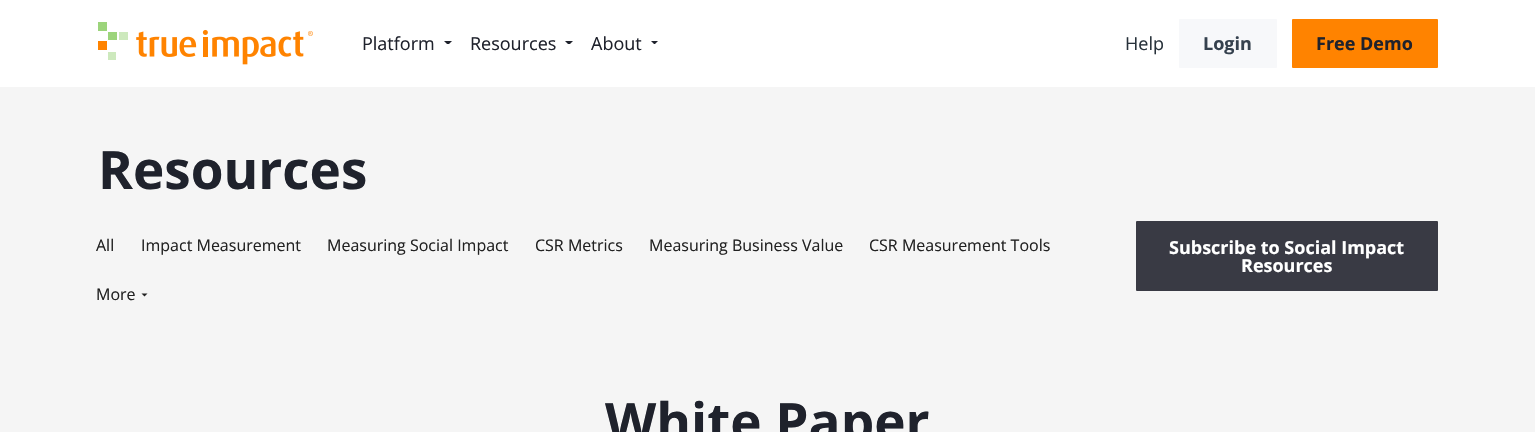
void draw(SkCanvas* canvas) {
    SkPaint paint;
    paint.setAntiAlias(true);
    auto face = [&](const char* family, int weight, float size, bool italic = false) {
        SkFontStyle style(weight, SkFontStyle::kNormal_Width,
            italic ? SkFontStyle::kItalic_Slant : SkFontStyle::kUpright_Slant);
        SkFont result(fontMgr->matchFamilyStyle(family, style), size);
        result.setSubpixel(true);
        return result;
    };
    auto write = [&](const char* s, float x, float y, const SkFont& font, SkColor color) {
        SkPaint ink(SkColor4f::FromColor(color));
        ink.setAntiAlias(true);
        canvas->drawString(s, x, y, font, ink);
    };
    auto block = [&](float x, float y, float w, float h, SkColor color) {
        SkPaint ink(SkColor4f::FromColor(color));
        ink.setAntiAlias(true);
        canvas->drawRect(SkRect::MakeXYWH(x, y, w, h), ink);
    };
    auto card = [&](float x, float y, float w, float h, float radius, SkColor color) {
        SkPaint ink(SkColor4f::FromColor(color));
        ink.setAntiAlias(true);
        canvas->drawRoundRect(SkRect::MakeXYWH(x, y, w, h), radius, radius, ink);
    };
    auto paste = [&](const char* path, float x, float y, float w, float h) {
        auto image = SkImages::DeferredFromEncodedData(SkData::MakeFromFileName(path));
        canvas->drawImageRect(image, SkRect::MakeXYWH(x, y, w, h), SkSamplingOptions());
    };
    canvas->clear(SkColorSetRGB(245, 245, 245));
    block(0, 0, 1535, 87, SK_ColorWHITE);
    paste("pic1.png", 98, 22, 215, 43);
    auto kFont1 = face("Open Sans", 400, 18);
    write("Platform", 362, 50, kFont1, SkColorSetRGB(31, 34, 44));
    paint.setColor(SkColorSetRGB(31, 34, 44));
    canvas->drawPath(SkPathBuilder().moveTo(444, 41).lineTo(452, 41).lineTo(449, 44).lineTo(447, 44).close().detach(), paint);
    write("Resources", 470, 50, kFont1, SkColorSetRGB(31, 34, 44));
    canvas->drawPath(SkPathBuilder().moveTo(565, 41).lineTo(573, 41).lineTo(570, 44).lineTo(568, 44).close().detach(), paint);
    write("About", 591, 50, kFont1, SkColorSetRGB(31, 34, 44));
    canvas->drawPath(SkPathBuilder().moveTo(651, 41).lineTo(658, 41).lineTo(655, 44).lineTo(654, 44).close().detach(), paint);
    write("Help", 1125, 50, kFont1, SkColorSetRGB(40, 50, 59));
    card(1179, 19, 98, 49, 1, SkColorSetRGB(247, 248, 250));
    auto kFont2 = face("Open Sans", 700, 18);
    write("Login", 1203, 50, kFont2, SkColorSetRGB(53, 65, 78));
    card(1292, 19, 146, 49, 1, SkColorSetRGB(255, 131, 0));
    write("Free Demo", 1316, 50, kFont2, SkColorSetRGB(31, 34, 44));
    auto kFont3 = face("Open Sans", 700, 53);
    write("Resources", 98, 189, kFont3, SkColorSetRGB(31, 34, 44));
    auto kFont4 = face("Open Sans", 400, 16);
    write("All", 96, 251, kFont4, SkColorSetRGB(34, 34, 34));
    write("Impact Measurement", 141, 251, kFont4, SkColorSetRGB(34, 34, 34));
    write("Measuring Social Impact", 327, 251, kFont4, SkColorSetRGB(34, 34, 34));
    write("CSR Metrics", 535, 251, kFont4, SkColorSetRGB(34, 34, 34));
    write("Measuring Business Value", 649, 251, kFont4, SkColorSetRGB(34, 34, 34));
    write("CSR Measurement Tools", 869, 251, kFont4, SkColorSetRGB(34, 34, 34));
    write("More", 96, 300, kFont4, SkColorSetRGB(34, 34, 34));
    paint.setColor(SkColorSetRGB(34, 34, 34));
    canvas->drawPath(SkPathBuilder().moveTo(144.5f, 296.5f).lineTo(147.5f, 293.5f).lineTo(141.5f, 293.5f).close().detach(), paint);
    card(1136, 221, 302, 70, 1, SkColorSetRGB(57, 58, 68));
    write("Subscribe to Social Impact", 1169, 254, kFont2, SK_ColorWHITE);
    write("Resources", 1241, 272, kFont2, SK_ColorWHITE);
    write("White Paper", 605, 441, kFont3, SkColorSetRGB(31, 34, 44));
}
